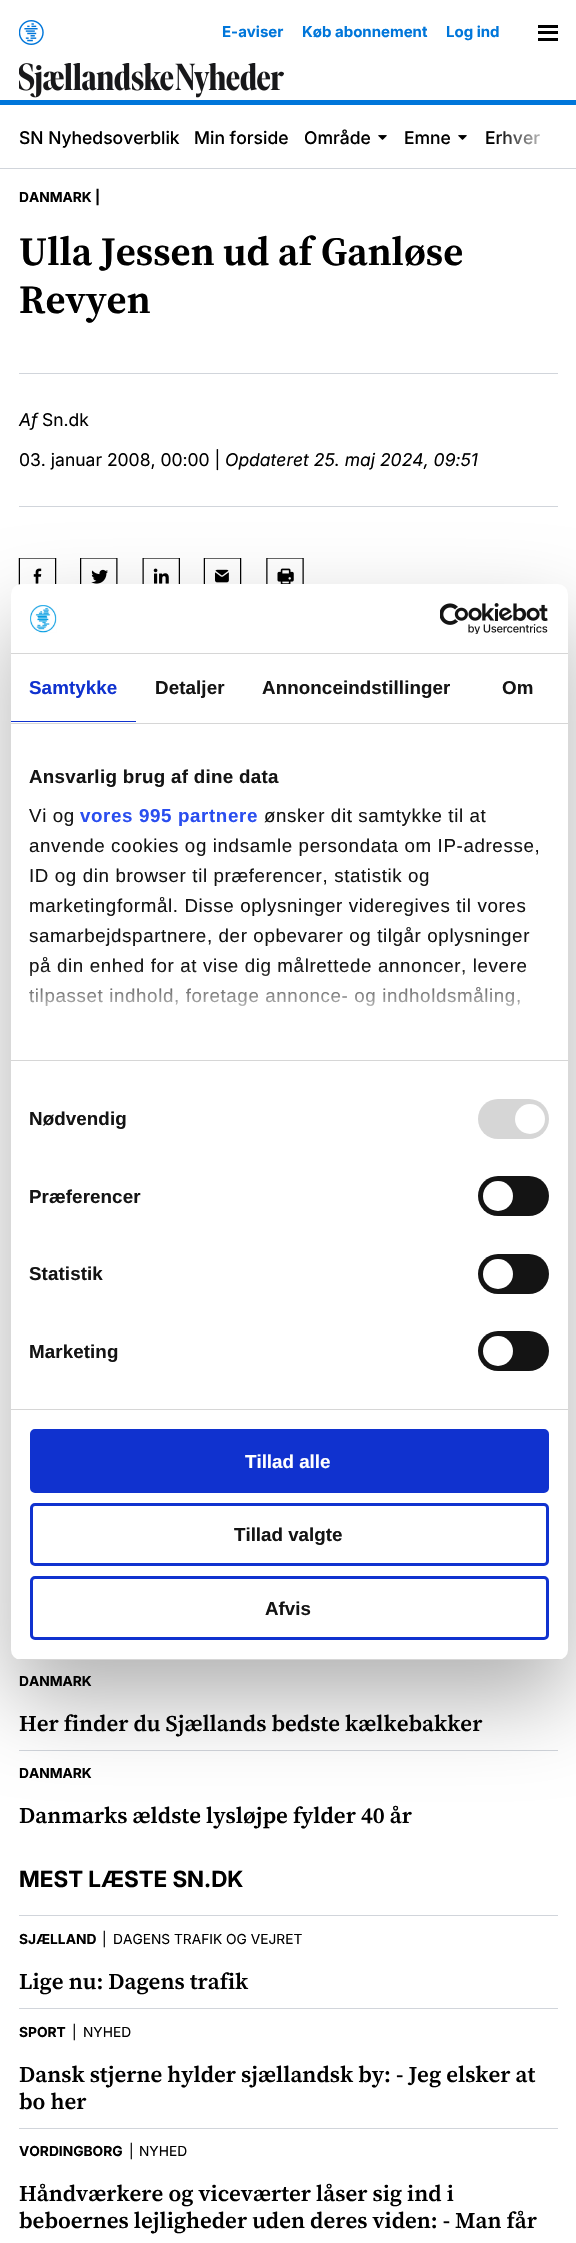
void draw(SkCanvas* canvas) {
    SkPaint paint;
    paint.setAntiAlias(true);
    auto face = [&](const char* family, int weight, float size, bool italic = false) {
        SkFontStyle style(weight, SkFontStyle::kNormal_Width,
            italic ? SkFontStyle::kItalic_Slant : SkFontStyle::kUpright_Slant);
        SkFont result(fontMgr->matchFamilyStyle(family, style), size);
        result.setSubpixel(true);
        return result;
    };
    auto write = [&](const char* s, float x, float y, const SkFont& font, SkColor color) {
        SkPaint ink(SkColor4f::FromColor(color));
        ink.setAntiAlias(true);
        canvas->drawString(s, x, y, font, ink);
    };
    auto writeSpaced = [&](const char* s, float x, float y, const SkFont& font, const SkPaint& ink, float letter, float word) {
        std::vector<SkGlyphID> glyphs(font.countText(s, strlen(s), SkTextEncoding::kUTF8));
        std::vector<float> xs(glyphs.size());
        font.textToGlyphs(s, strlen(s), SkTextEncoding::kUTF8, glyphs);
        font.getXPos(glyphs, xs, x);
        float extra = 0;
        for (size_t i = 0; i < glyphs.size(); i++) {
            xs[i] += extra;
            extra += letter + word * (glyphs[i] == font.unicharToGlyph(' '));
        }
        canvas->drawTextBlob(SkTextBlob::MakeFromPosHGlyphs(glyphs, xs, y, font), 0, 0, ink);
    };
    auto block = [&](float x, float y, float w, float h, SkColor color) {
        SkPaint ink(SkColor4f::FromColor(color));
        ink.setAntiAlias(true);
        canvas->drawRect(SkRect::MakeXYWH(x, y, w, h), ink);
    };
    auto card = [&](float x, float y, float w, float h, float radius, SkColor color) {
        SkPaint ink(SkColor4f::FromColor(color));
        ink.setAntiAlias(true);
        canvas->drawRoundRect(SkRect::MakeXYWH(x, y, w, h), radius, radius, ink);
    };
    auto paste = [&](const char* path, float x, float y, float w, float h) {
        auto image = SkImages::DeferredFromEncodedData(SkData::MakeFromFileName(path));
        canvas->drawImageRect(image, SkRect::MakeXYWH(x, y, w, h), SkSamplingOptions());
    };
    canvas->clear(SK_ColorWHITE);
    block(0, 168, 576, 1, SkColorSetRGB(209, 213, 219));
    paste("pic1.png", 19, 20, 25, 25);
    auto kFont1 = face("Inter", 700, 15);
    write("E-aviser", 222, 37, kFont1, SkColorSetRGB(0, 118, 218));
    write("Køb abonnement", 302, 37, kFont1, SkColorSetRGB(0, 118, 218));
    write("Log ind", 446, 37, kFont1, SkColorSetRGB(0, 118, 218));
    block(538, 31, 20, 3, SK_ColorBLACK);
    block(538, 25, 20, 3, SK_ColorBLACK);
    block(538, 38, 20, 3, SK_ColorBLACK);
    paste("pic2.png", 19, 63, 265, 35);
    block(0, 100, 576, 5, SkColorSetRGB(0, 118, 218));
    auto kFont2 = face("Inter", 500, 17.5f);
    write("SN Nyhedsoverblik", 19, 144, kFont2, SK_ColorBLACK);
    write("Min forside", 194, 144, kFont2, SK_ColorBLACK);
    write("Område", 304, 144, kFont2, SK_ColorBLACK);
    paste("pic3.png", 378, 135, 9, 5);
    write("Emne", 404, 144, kFont2, SK_ColorBLACK);
    paste("pic3.png", 458, 135, 9, 5);
    write("Erhver", 485, 144, kFont2, SK_ColorBLACK);
    {
        const SkColor colors[] = {SK_ColorWHITE, SkColorSetARGB(0, 255, 255, 255)};
        const float stops[] = {0, 1};
        const SkPoint ends[] = {{558, 138}, {495, 138}};
        paint.setShader(SkGradientShader::MakeLinear(ends, colors, stops, 2, SkTileMode::kClamp));
        paint.setAlpha(255);
    }
    canvas->drawRect(SkRect::MakeXYWH(497, 131, 43, 14), paint);
    auto kFont3 = face("Inter", 700, 13.75f);
    write("DANMARK |", 19, 202, kFont3, SK_ColorBLACK);
    auto kFont4 = face("Source Serif 4", 600, 40);
    write("Ulla Jessen ud af Ganløse", 19, 265, kFont4, SK_ColorBLACK);
    write("Revyen", 19, 313, kFont4, SK_ColorBLACK);
    block(19, 373, 539, 1, SkColorSetRGB(209, 213, 219));
    block(19, 506, 539, 1, SkColorSetRGB(209, 213, 219));
    auto kFont5 = face("Inter", 400, 17.5f, true);
    write("Af", 19, 426, kFont5, SK_ColorBLACK);
    auto kFont6 = face("Inter", 400, 17.5f);
    write("Sn.dk", 42, 426, kFont6, SK_ColorBLACK);
    write("03. januar 2008, 00:00 |", 19, 466, kFont6, SK_ColorBLACK);
    write("Opdateret 25. maj 2024, 09:51", 225, 466, kFont5, SK_ColorBLACK);
    paste("pic4.png", 18, 558, 39, 27);
    paste("pic5.png", 80, 558, 38, 26);
    paste("pic6.png", 142, 558, 38, 26);
    paste("pic7.png", 203, 558, 39, 26);
    paste("pic8.png", 266, 558, 38, 26);
    write("DANMARK", 19, 1686, kFont3, SK_ColorBLACK);
    auto kFont7 = face("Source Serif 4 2", 600, 22.5f);
    write("Her finder du Sjællands bedste kælkebakker", 19, 1731, kFont7, SK_ColorBLACK);
    block(19, 1750, 539, 1, SkColorSetRGB(209, 213, 219));
    write("DANMARK", 19, 1778, kFont3, SK_ColorBLACK);
    write("Danmarks ældste lysløjpe fylder 40 år", 19, 1823, kFont7, SK_ColorBLACK);
    auto kFont8 = face("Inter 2", 700, 22.5f);
    write("MEST LÆSTE SN.DK", 19, 1887, kFont8, SK_ColorBLACK);
    block(19, 1915, 539, 1, SkColorSetRGB(209, 213, 219));
    write("SJÆLLAND", 19, 1944, kFont3, SK_ColorBLACK);
    auto kFont9 = face("Inter", 400, 13.75f);
    write("|", 102, 1944, kFont9, SK_ColorBLACK);
    write("DAGENS TRAFIK OG VEJRET", 113, 1944, kFont9, SK_ColorBLACK);
    write("Lige nu: Dagens trafik", 19, 1989, kFont7, SK_ColorBLACK);
    block(19, 2008, 539, 1, SkColorSetRGB(209, 213, 219));
    write("SPORT", 19, 2037, kFont3, SK_ColorBLACK);
    write("|", 72, 2037, kFont9, SK_ColorBLACK);
    write("NYHED", 83, 2037, kFont9, SK_ColorBLACK);
    write("Dansk stjerne hylder sjællandsk by: - Jeg elsker at", 19, 2082, kFont7, SK_ColorBLACK);
    write("bo her", 19, 2109, kFont7, SK_ColorBLACK);
    block(19, 2128, 539, 1, SkColorSetRGB(209, 213, 219));
    write("VORDINGBORG", 19, 2156, kFont3, SK_ColorBLACK);
    write("|", 129, 2156, kFont9, SK_ColorBLACK);
    write("NYHED", 139, 2156, kFont9, SK_ColorBLACK);
    write("Håndværkere og viceværter låser sig ind i", 19, 2201, kFont7, SK_ColorBLACK);
    write("beboernes lejligheder uden deres viden: - Man får", 19, 2228, kFont7, SK_ColorBLACK);
    paint.setShader(nullptr);
    paint.setColor(SkColorSetARGB(77, 0, 0, 0));
    paint.setMaskFilter(SkMaskFilter::MakeBlur(kNormal_SkBlurStyle, 42.5f));
    canvas->drawRoundRect(SkRect::MakeXYWH(11, 624, 557, 1076), 10, 10, paint);
    paint.setMaskFilter(nullptr);
    card(11, 584, 557, 1076, 10, SK_ColorWHITE);
    block(11, 653, 557, 1, SkColorSetRGB(214, 214, 214));
    paste("pic9.png", 30, 605, 27, 28);
    paste("pic10.png", 440, 603, 108, 31);
    block(11, 723, 557, 1, SkColorSetRGB(214, 214, 214));
    block(11, 721, 125, 1, SkColorSetRGB(16, 50, 207));
    auto kFont10 = face("Liberation Sans", 700, 18.75f);
    paint.setColor(SkColorSetRGB(16, 50, 207));
    writeSpaced("Samtykke", 29, 694, kFont10, paint, 0.1f, 0);
    paint.setColor(SkColorSetRGB(20, 20, 20));
    writeSpaced("Detaljer", 155, 694, kFont10, paint, 0.1f, 0);
    writeSpaced("Annonceindstillinger", 262, 694, kFont10, paint, 0.1f, 0);
    writeSpaced("Om", 502, 694, kFont10, paint, 0.1f, 0);
    block(11, 1060, 557, 1, SkColorSetRGB(214, 214, 214));
    writeSpaced("Ansvarlig brug af dine data", 29, 783, kFont10, paint, 0.3f, 0);
    auto kFont11 = face("Liberation Sans", 400, 18.75f);
    writeSpaced("Vi og", 29, 822, kFont11, paint, 0.62f, 0);
    paint.setColor(SkColorSetRGB(42, 78, 239));
    writeSpaced("vores 995 partnere", 80, 822, kFont10, paint, 0.62f, 0);
    paint.setColor(SkColorSetRGB(20, 20, 20));
    writeSpaced("ønsker dit samtykke til at", 264, 822, kFont11, paint, 0.62f, 0);
    writeSpaced("anvende cookies og indsamle persondata om IP-adresse,", 29, 852, kFont11, paint, 0.62f, 0);
    writeSpaced("ID og din browser til præferencer, statistik og", 29, 882, kFont11, paint, 0.62f, 0);
    writeSpaced("marketingformål. Disse oplysninger videregives til vores", 29, 912, kFont11, paint, 0.62f, 0);
    writeSpaced("samarbejdspartnere, der opbevarer og tilgår oplysninger", 29, 942, kFont11, paint, 0.62f, 0);
    writeSpaced("på din enhed for at vise dig målrettede annoncer, levere", 29, 972, kFont11, paint, 0.62f, 0);
    writeSpaced("tilpasset indhold, foretage annonce- og indholdsmåling,", 29, 1002, kFont11, paint, 0.62f, 0);
    {
        const SkColor colors[] = {SK_ColorWHITE, SkColorSetARGB(204, 255, 255, 255), SkColorSetARGB(0, 255, 255, 255)};
        const float stops[] = {0, 0.5f, 1};
        const SkPoint ends[] = {{281, 1060}, {281, 967}};
        paint.setShader(SkGradientShader::MakeLinear(ends, colors, stops, 3, SkTileMode::kClamp));
        paint.setAlpha(255);
    }
    canvas->drawRect(SkRect::MakeXYWH(29, 968, 497, 38), paint);
    block(11, 1409, 557, 1, SkColorSetRGB(214, 214, 214));
    paint.setShader(nullptr);
    paint.setColor(SkColorSetRGB(20, 20, 20));
    writeSpaced("Nødvendig", 29, 1125, kFont10, paint, 0.1f, 0);
    card(478, 1099, 71, 40, 20, SkColorSetRGB(214, 214, 214));
    paint.setColor(SK_ColorWHITE);
    canvas->drawCircle(530, 1119, 15, paint);
    paint.setColor(SkColorSetRGB(20, 20, 20));
    writeSpaced("Præferencer", 29, 1203, kFont10, paint, 0.1f, 0);
    card(478, 1176, 71, 40, 20, SkColorSetRGB(20, 20, 20));
    paint.setColor(SK_ColorWHITE);
    canvas->drawCircle(498, 1196, 15, paint);
    paint.setColor(SkColorSetRGB(20, 20, 20));
    writeSpaced("Statistik", 29, 1280, kFont10, paint, 0.1f, 0);
    card(478, 1254, 71, 40, 20, SkColorSetRGB(20, 20, 20));
    paint.setColor(SK_ColorWHITE);
    canvas->drawCircle(498, 1274, 15, paint);
    paint.setColor(SkColorSetRGB(20, 20, 20));
    writeSpaced("Marketing", 29, 1358, kFont10, paint, 0.1f, 0);
    card(478, 1331, 71, 40, 20, SkColorSetRGB(20, 20, 20));
    paint.setColor(SK_ColorWHITE);
    canvas->drawCircle(498, 1351, 15, paint);
    canvas->save();
    canvas->clipPath(SkPathBuilder().moveTo(21, 584).lineTo(558, 584).cubicTo(563.5f, 584, 568, 588.5f, 568, 594).lineTo(568, 1650).cubicTo(568, 1655.5f, 563.5f, 1660, 558, 1660).lineTo(21, 1660).cubicTo(15.5f, 1660, 11, 1655.5f, 11, 1650).lineTo(11, 594).cubicTo(11, 588.5f, 15.5f, 584, 21, 584).close().detach(), true);
    block(11, 1659, 557, 1, SkColorSetRGB(214, 214, 214));
    canvas->restore();
    paint.setColor(SkColorSetRGB(16, 50, 207));
    canvas->drawRoundRect(SkRect::MakeXYWH(31.5f, 1430.5f, 516, 61), 3.5f, 3.5f, paint);
    paint.setStyle(SkPaint::kStroke_Style);
    paint.setStrokeWidth(3);
    canvas->drawRoundRect(SkRect::MakeXYWH(31.5f, 1430.5f, 516, 61), 3.5f, 3.5f, paint);
    write("Tillad alle", 245, 1468, kFont10, SK_ColorWHITE);
    canvas->drawRoundRect(SkRect::MakeXYWH(31.5f, 1504.5f, 516, 60), 3.5f, 3.5f, paint);
    write("Tillad valgte", 234, 1541, kFont10, SkColorSetRGB(20, 20, 20));
    canvas->drawRoundRect(SkRect::MakeXYWH(31.5f, 1577.5f, 516, 61), 3.5f, 3.5f, paint);
    write("Afvis", 265, 1615, kFont10, SkColorSetRGB(20, 20, 20));
}
